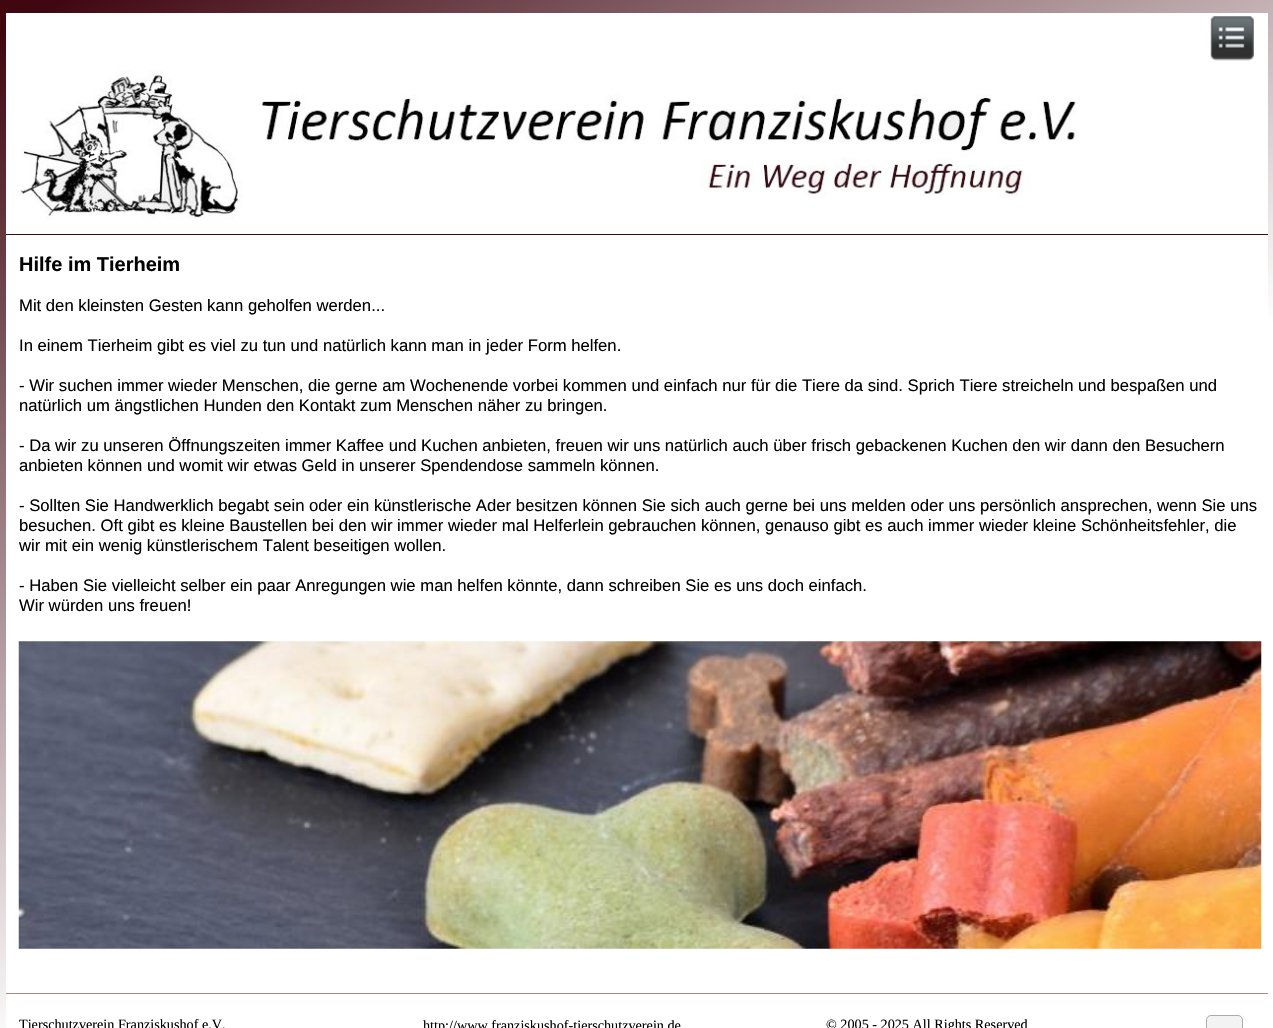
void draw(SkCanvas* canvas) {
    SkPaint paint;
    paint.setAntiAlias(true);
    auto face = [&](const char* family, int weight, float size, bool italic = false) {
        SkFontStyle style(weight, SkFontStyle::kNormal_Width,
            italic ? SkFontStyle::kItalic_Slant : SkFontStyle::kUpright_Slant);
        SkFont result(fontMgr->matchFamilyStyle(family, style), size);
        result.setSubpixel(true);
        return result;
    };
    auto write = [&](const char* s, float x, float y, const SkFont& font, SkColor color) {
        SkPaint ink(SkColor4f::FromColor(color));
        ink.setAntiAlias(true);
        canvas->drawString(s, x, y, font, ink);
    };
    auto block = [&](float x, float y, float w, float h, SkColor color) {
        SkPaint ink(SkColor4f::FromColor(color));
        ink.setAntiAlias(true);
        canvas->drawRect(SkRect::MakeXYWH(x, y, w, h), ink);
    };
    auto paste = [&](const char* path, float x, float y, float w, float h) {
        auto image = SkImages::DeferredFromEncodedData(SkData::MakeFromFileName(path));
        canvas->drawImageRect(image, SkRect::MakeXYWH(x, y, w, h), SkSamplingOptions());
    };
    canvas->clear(SK_ColorWHITE);
    {
        const SkColor colors[] = {SkColorSetRGB(64, 7, 17), SK_ColorWHITE};
        const float stops[] = {0.02f, 0.6f};
        const SkPoint ends[] = {{255, -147}, {1019, 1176}};
        paint.setShader(SkGradientShader::MakeLinear(ends, colors, stops, 2, SkTileMode::kClamp));
        paint.setAlpha(255);
    }
    canvas->drawRect(SkRect::MakeXYWH(0, 0, 1273, 1028), paint);
    block(6, 13, 1262, 1015, SK_ColorWHITE);
    block(6, 234, 1262, 1, SkColorSetRGB(64, 7, 17));
    paste("pic1.png", 1210, 16, 44, 46);
    paste("pic2.png", 16, 70, 1060, 150);
    auto kFont1 = face("Liberation Sans", 700, 20);
    write("Hilfe im Tierheim", 19, 271, kFont1, SK_ColorBLACK);
    auto kFont2 = face("Liberation Sans", 400, 16.67f);
    write("Mit den kleinsten Gesten kann geholfen werden...", 19, 311, kFont2, SK_ColorBLACK);
    write("In einem Tierheim gibt es viel zu tun und natürlich kann man in jeder Form helfen.", 19, 351, kFont2, SK_ColorBLACK);
    write("- Wir suchen immer wieder Menschen, die gerne am Wochenende vorbei kommen und einfach nur für die Tiere da sind. Sprich Tiere streicheln und bespaßen und", 19, 391, kFont2, SK_ColorBLACK);
    write("natürlich um ängstlichen Hunden den Kontakt zum Menschen näher zu bringen.", 19, 411, kFont2, SK_ColorBLACK);
    write("- Da wir zu unseren Öffnungszeiten immer Kaffee und Kuchen anbieten, freuen wir uns natürlich auch über frisch gebackenen Kuchen den wir dann den Besuchern", 19, 451, kFont2, SK_ColorBLACK);
    write("anbieten können und womit wir etwas Geld in unserer Spendendose sammeln können.", 19, 471, kFont2, SK_ColorBLACK);
    write("- Sollten Sie Handwerklich begabt sein oder ein künstlerische Ader besitzen können Sie sich auch gerne bei uns melden oder uns persönlich ansprechen, wenn Sie uns", 19, 511, kFont2, SK_ColorBLACK);
    write("besuchen. Oft gibt es kleine Baustellen bei den wir immer wieder mal Helferlein gebrauchen können, genauso gibt es auch immer wieder kleine Schönheitsfehler, die", 19, 531, kFont2, SK_ColorBLACK);
    write("wir mit ein wenig künstlerischem Talent beseitigen wollen.", 19, 551, kFont2, SK_ColorBLACK);
    write("- Haben Sie vielleicht selber ein paar Anregungen wie man helfen könnte, dann schreiben Sie es uns doch einfach.", 19, 591, kFont2, SK_ColorBLACK);
    write("Wir würden uns freuen!", 19, 611, kFont2, SK_ColorBLACK);
    paste("pic3.png", 18, 641, 1244, 308);
    block(6, 993, 1262, 1, SkColorSetRGB(166, 136, 137));
    auto kFont3 = face("Liberation Serif", 400, 14.2f);
    write("Tierschutzverein Franziskushof e.V.", 19, 1029, kFont3, SK_ColorBLACK);
    write("http://www.franziskushof-tierschutzverein.de", 423, 1030, kFont3, SK_ColorBLACK);
    write("© 2005 - 2025 All Rights Reserved", 826, 1029, kFont3, SK_ColorBLACK);
    paint.setShader(nullptr);
    paint.setColor(SkColorSetRGB(243, 243, 243));
    canvas->drawRoundRect(SkRect::MakeXYWH(1206.5f, 1015.5f, 36, 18), 4.5f, 4.5f, paint);
    paint.setStyle(SkPaint::kStroke_Style);
    paint.setStrokeWidth(1);
    paint.setColor(SkColorSetRGB(172, 172, 172));
    canvas->drawRoundRect(SkRect::MakeXYWH(1206.5f, 1015.5f, 36, 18), 4.5f, 4.5f, paint);
}
